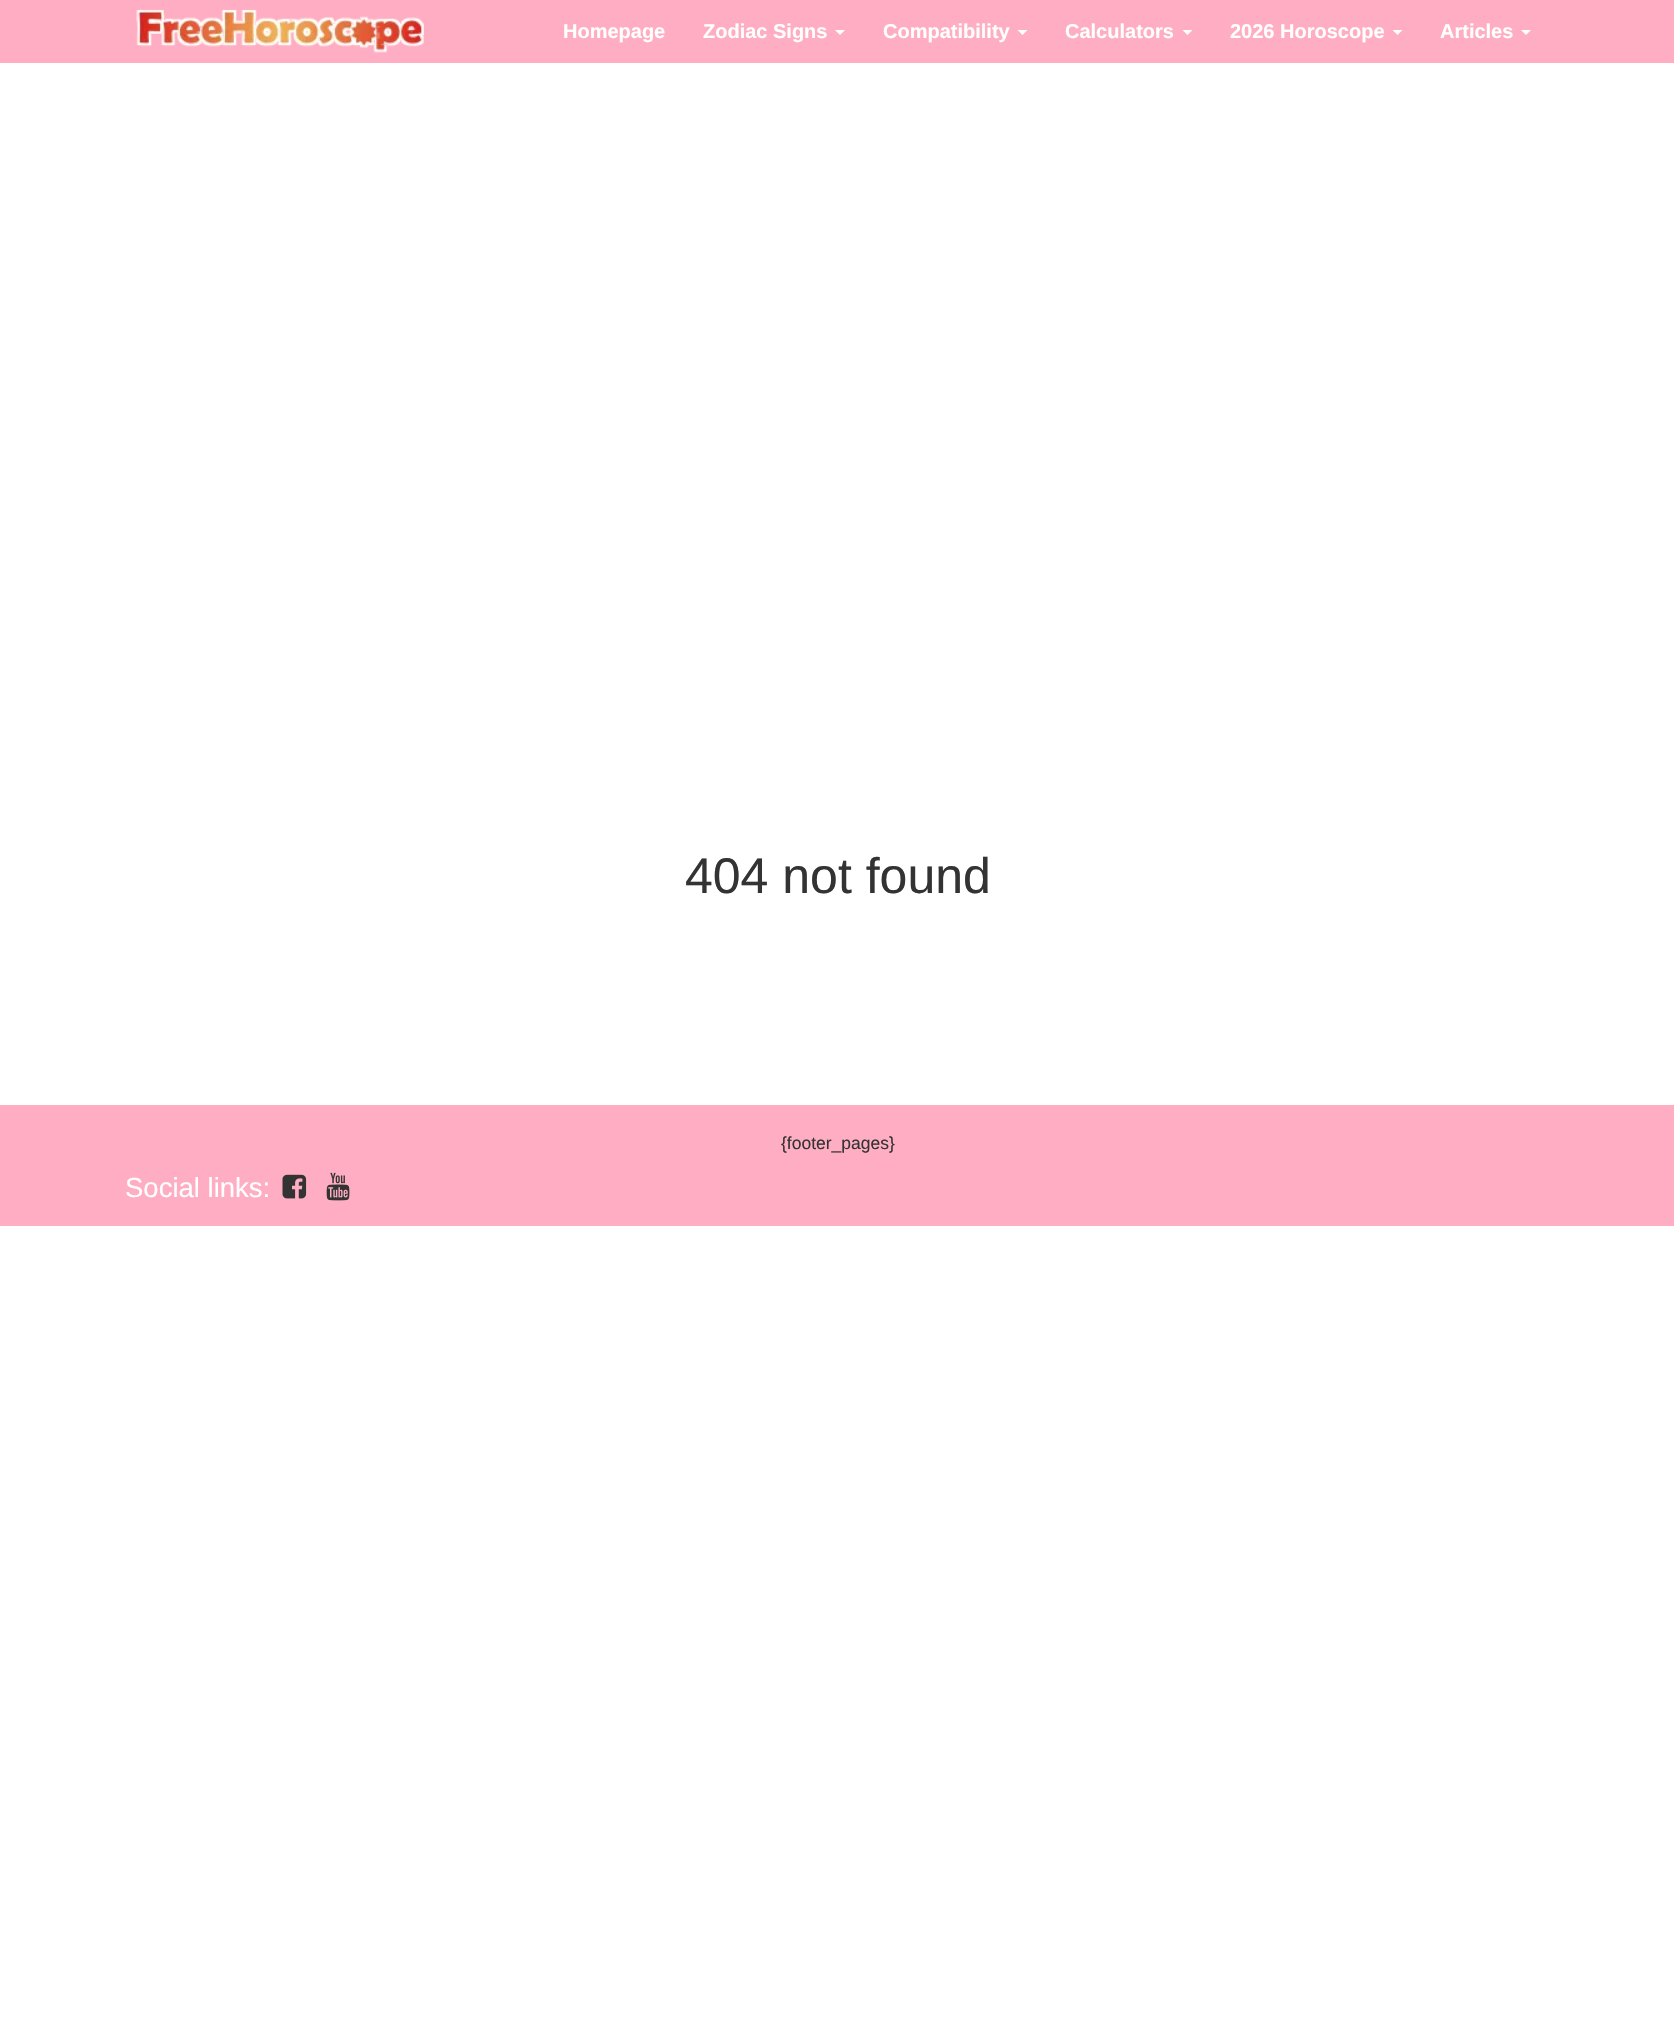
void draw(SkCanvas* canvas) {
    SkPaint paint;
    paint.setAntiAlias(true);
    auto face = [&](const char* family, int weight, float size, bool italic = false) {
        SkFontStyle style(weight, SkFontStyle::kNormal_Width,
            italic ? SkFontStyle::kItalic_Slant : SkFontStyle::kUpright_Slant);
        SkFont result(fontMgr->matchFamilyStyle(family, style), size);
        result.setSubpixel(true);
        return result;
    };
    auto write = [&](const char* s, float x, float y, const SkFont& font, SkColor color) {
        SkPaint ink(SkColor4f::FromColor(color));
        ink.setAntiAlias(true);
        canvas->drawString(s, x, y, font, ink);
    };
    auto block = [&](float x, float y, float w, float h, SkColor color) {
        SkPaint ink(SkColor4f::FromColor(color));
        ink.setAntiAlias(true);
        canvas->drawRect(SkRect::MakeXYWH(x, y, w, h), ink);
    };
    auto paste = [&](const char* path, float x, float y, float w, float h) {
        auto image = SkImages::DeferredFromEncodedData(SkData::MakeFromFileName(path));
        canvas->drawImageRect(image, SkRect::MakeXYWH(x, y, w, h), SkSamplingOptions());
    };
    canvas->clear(SK_ColorWHITE);
    block(0, 0, 1674, 63, SkColorSetRGB(255, 173, 194));
    paste("pic1.png", 136, 9, 288, 44);
    auto kFont1 = face("Liberation Sans", 700, 20);
    write("Homepage", 563, 38, kFont1, SK_ColorWHITE);
    write("Zodiac Signs", 703, 38, kFont1, SK_ColorWHITE);
    paint.setColor(SK_ColorWHITE);
    canvas->drawPath(SkPathBuilder().moveTo(835, 30).lineTo(845, 30).lineTo(840, 35).close().detach(), paint);
    write("Compatibility", 883, 38, kFont1, SK_ColorWHITE);
    canvas->drawPath(SkPathBuilder().moveTo(1017.5f, 30).lineTo(1027.5f, 30).lineTo(1022.5f, 35).close().detach(), paint);
    write("Calculators", 1065, 38, kFont1, SK_ColorWHITE);
    canvas->drawPath(SkPathBuilder().moveTo(1182.5f, 30).lineTo(1192.5f, 30).lineTo(1187.5f, 35).close().detach(), paint);
    write("2026 Horoscope", 1230, 38, kFont1, SK_ColorWHITE);
    canvas->drawPath(SkPathBuilder().moveTo(1392.5f, 30).lineTo(1402.5f, 30).lineTo(1397.5f, 35).close().detach(), paint);
    write("Articles", 1440, 38, kFont1, SK_ColorWHITE);
    canvas->drawPath(SkPathBuilder().moveTo(1521, 30).lineTo(1531, 30).lineTo(1526, 35).close().detach(), paint);
    auto kFont2 = face("Liberation Sans", 400, 50);
    write("404 not found", 685, 893, kFont2, SkColorSetRGB(51, 51, 51));
    block(0, 1105, 1674, 121, SkColorSetRGB(255, 173, 194));
    auto kFont3 = face("Liberation Sans", 400, 17.5f);
    write("{footer_pages}", 781, 1149, kFont3, SkColorSetRGB(51, 51, 51));
    auto kFont4 = face("Liberation Sans", 400, 27.5f);
    write("Social links:", 125, 1197, kFont4, SK_ColorWHITE);
    paste("pic2.png", 282, 1174, 25, 25);
    paste("pic3.png", 326, 1172, 24, 29);
}
